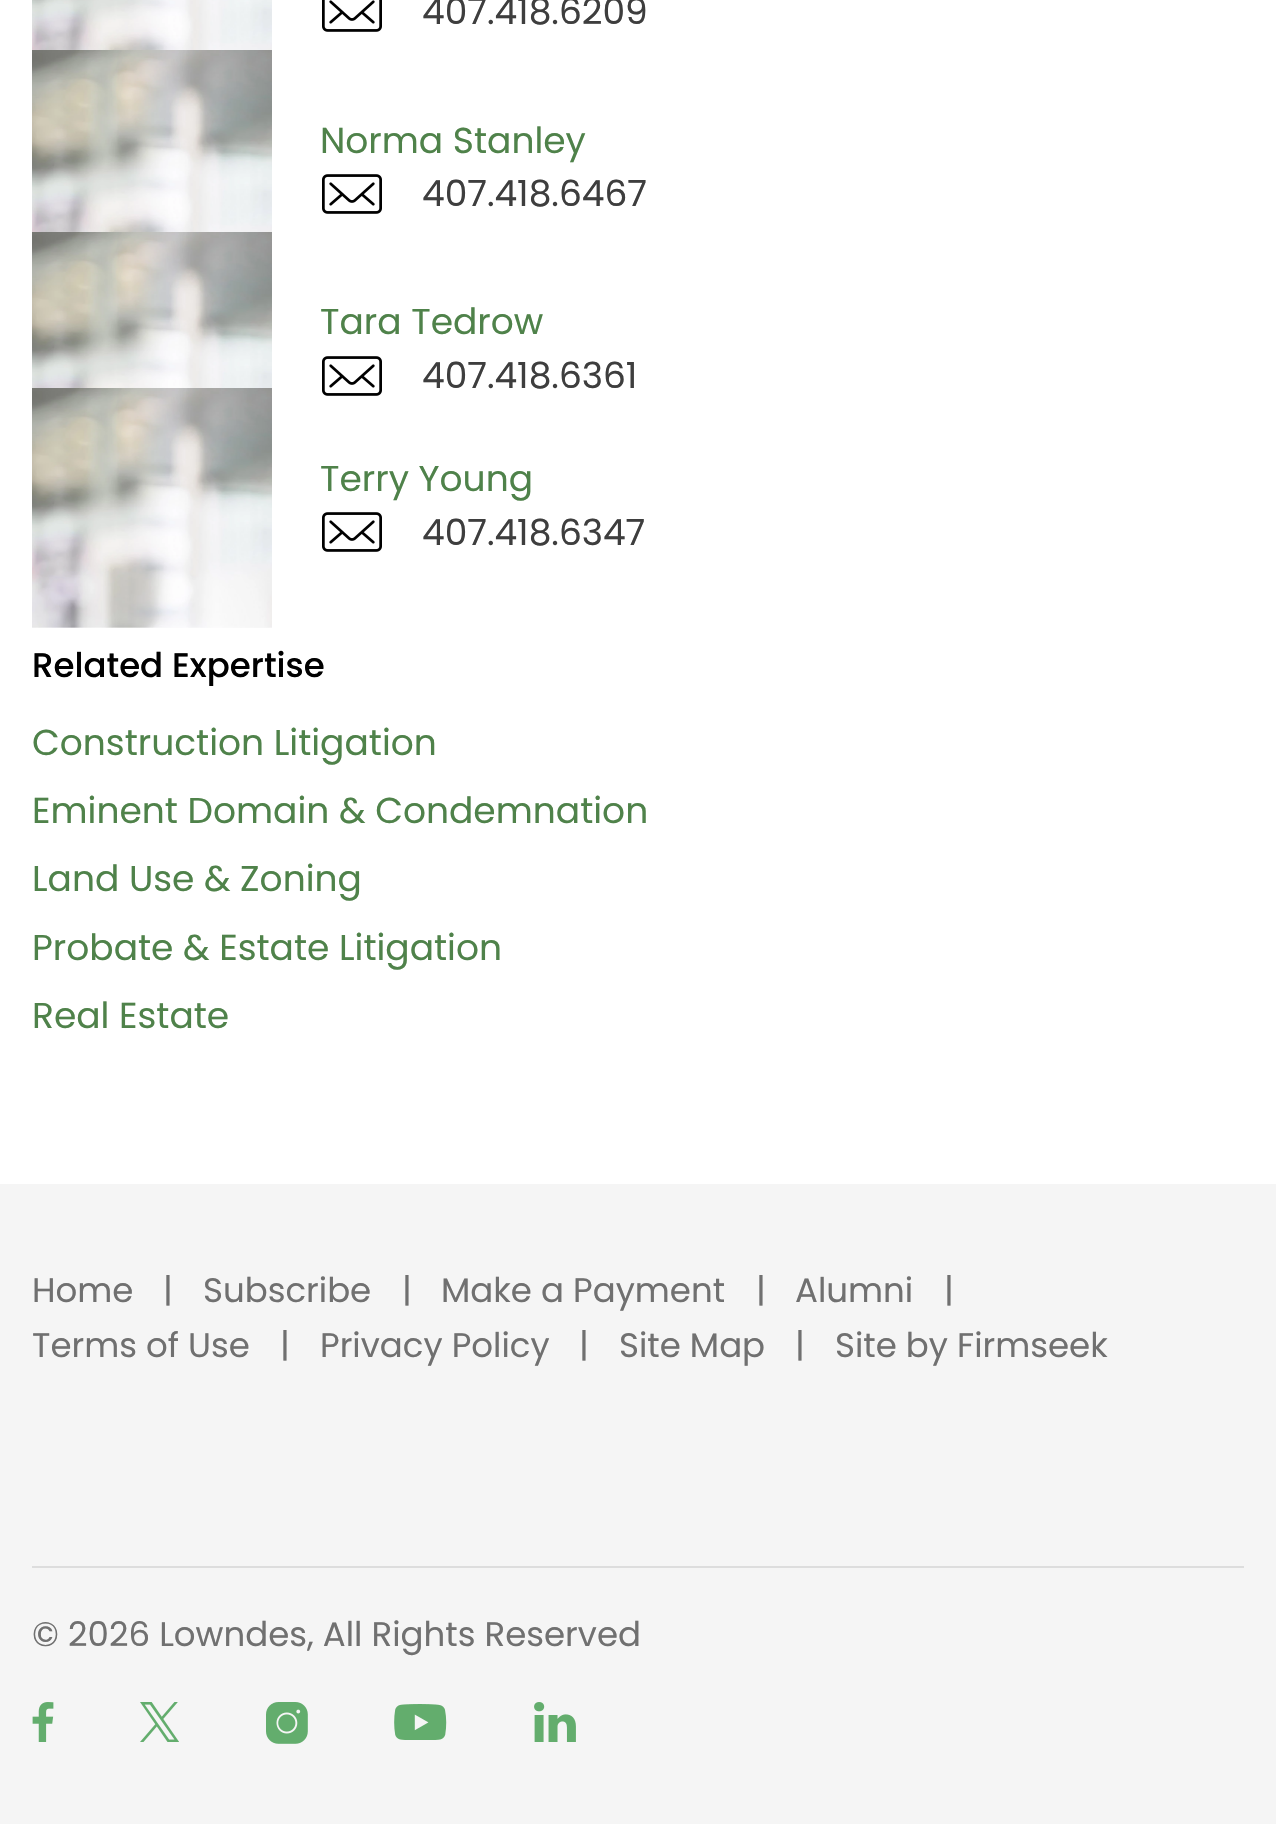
void draw(SkCanvas* canvas) {
    SkPaint paint;
    paint.setAntiAlias(true);
    auto face = [&](const char* family, int weight, float size, bool italic = false) {
        SkFontStyle style(weight, SkFontStyle::kNormal_Width,
            italic ? SkFontStyle::kItalic_Slant : SkFontStyle::kUpright_Slant);
        SkFont result(fontMgr->matchFamilyStyle(family, style), size);
        result.setSubpixel(true);
        return result;
    };
    auto write = [&](const char* s, float x, float y, const SkFont& font, SkColor color) {
        SkPaint ink(SkColor4f::FromColor(color));
        ink.setAntiAlias(true);
        canvas->drawString(s, x, y, font, ink);
    };
    auto block = [&](float x, float y, float w, float h, SkColor color) {
        SkPaint ink(SkColor4f::FromColor(color));
        ink.setAntiAlias(true);
        canvas->drawRect(SkRect::MakeXYWH(x, y, w, h), ink);
    };
    auto paste = [&](const char* path, float x, float y, float w, float h) {
        auto image = SkImages::DeferredFromEncodedData(SkData::MakeFromFileName(path));
        canvas->drawImageRect(image, SkRect::MakeXYWH(x, y, w, h), SkSamplingOptions());
    };
    canvas->clear(SK_ColorWHITE);
    paste("pic1.png", 32, 0, 240, 50);
    paste("pic2.png", 322, 0, 60, 32);
    auto kFont1 = face("Poppins", 400, 36);
    write("407.418.6209", 422, 24, kFont1, SkColorSetRGB(62, 62, 62));
    paste("pic3.png", 32, 50, 240, 182);
    write("Norma Stanley", 320, 153, kFont1, SkColorSetRGB(79, 130, 74));
    paste("pic4.png", 322, 174, 60, 40);
    write("407.418.6467", 422, 206, kFont1, SkColorSetRGB(62, 62, 62));
    paste("pic5.png", 32, 232, 240, 156);
    write("Tara Tedrow", 320, 334, kFont1, SkColorSetRGB(79, 130, 74));
    paste("pic4.png", 322, 356, 60, 40);
    write("407.418.6361", 422, 388, kFont1, SkColorSetRGB(62, 62, 62));
    paste("pic6.png", 32, 388, 240, 240);
    write("Terry Young", 320, 491, kFont1, SkColorSetRGB(79, 130, 74));
    paste("pic4.png", 322, 512, 60, 40);
    write("407.418.6347", 422, 545, kFont1, SkColorSetRGB(62, 62, 62));
    auto kFont2 = face("Poppins", 500, 34);
    write("Related Expertise", 32, 677, kFont2, SK_ColorBLACK);
    write("Construction Litigation", 32, 755, kFont1, SkColorSetRGB(79, 130, 74));
    write("Eminent Domain & Condemnation", 32, 823, kFont1, SkColorSetRGB(79, 130, 74));
    write("Land Use & Zoning", 32, 891, kFont1, SkColorSetRGB(79, 130, 74));
    write("Probate & Estate Litigation", 32, 960, kFont1, SkColorSetRGB(79, 130, 74));
    write("Real Estate", 32, 1028, kFont1, SkColorSetRGB(79, 130, 74));
    block(0, 1184, 1276, 640, SkColorSetRGB(245, 245, 245));
    auto kFont3 = face("Poppins", 400, 34);
    write("Home", 32, 1302, kFont3, SkColorSetRGB(112, 112, 112));
    write("|", 163, 1302, kFont3, SkColorSetRGB(112, 112, 112));
    write("Subscribe", 203, 1302, kFont3, SkColorSetRGB(112, 112, 112));
    write("|", 402, 1302, kFont3, SkColorSetRGB(112, 112, 112));
    write("Make a Payment", 441, 1302, kFont3, SkColorSetRGB(112, 112, 112));
    write("|", 756, 1302, kFont3, SkColorSetRGB(112, 112, 112));
    write("Alumni", 795, 1302, kFont3, SkColorSetRGB(112, 112, 112));
    write("|", 944, 1302, kFont3, SkColorSetRGB(112, 112, 112));
    write("Terms of Use", 32, 1357, kFont3, SkColorSetRGB(112, 112, 112));
    write("|", 280, 1357, kFont3, SkColorSetRGB(112, 112, 112));
    write("Privacy Policy", 320, 1357, kFont3, SkColorSetRGB(112, 112, 112));
    write("|", 579, 1357, kFont3, SkColorSetRGB(112, 112, 112));
    write("Site Map", 619, 1357, kFont3, SkColorSetRGB(112, 112, 112));
    write("|", 795, 1357, kFont3, SkColorSetRGB(112, 112, 112));
    write("Site by Firmseek", 835, 1357, kFont3, SkColorSetRGB(112, 112, 112));
    block(32, 1566, 1212, 2, SkColorSetRGB(221, 221, 221));
    write("© 2026 Lowndes, All Rights Reserved", 32, 1646, kFont3, SkColorSetRGB(112, 112, 112));
    paste("pic7.png", 32, 1702, 22, 40);
    paste("pic8.png", 140, 1702, 39, 40);
    paste("pic9.png", 266, 1702, 42, 42);
    paste("pic10.png", 394, 1704, 53, 36);
    paste("pic11.png", 534, 1702, 42, 40);
}
